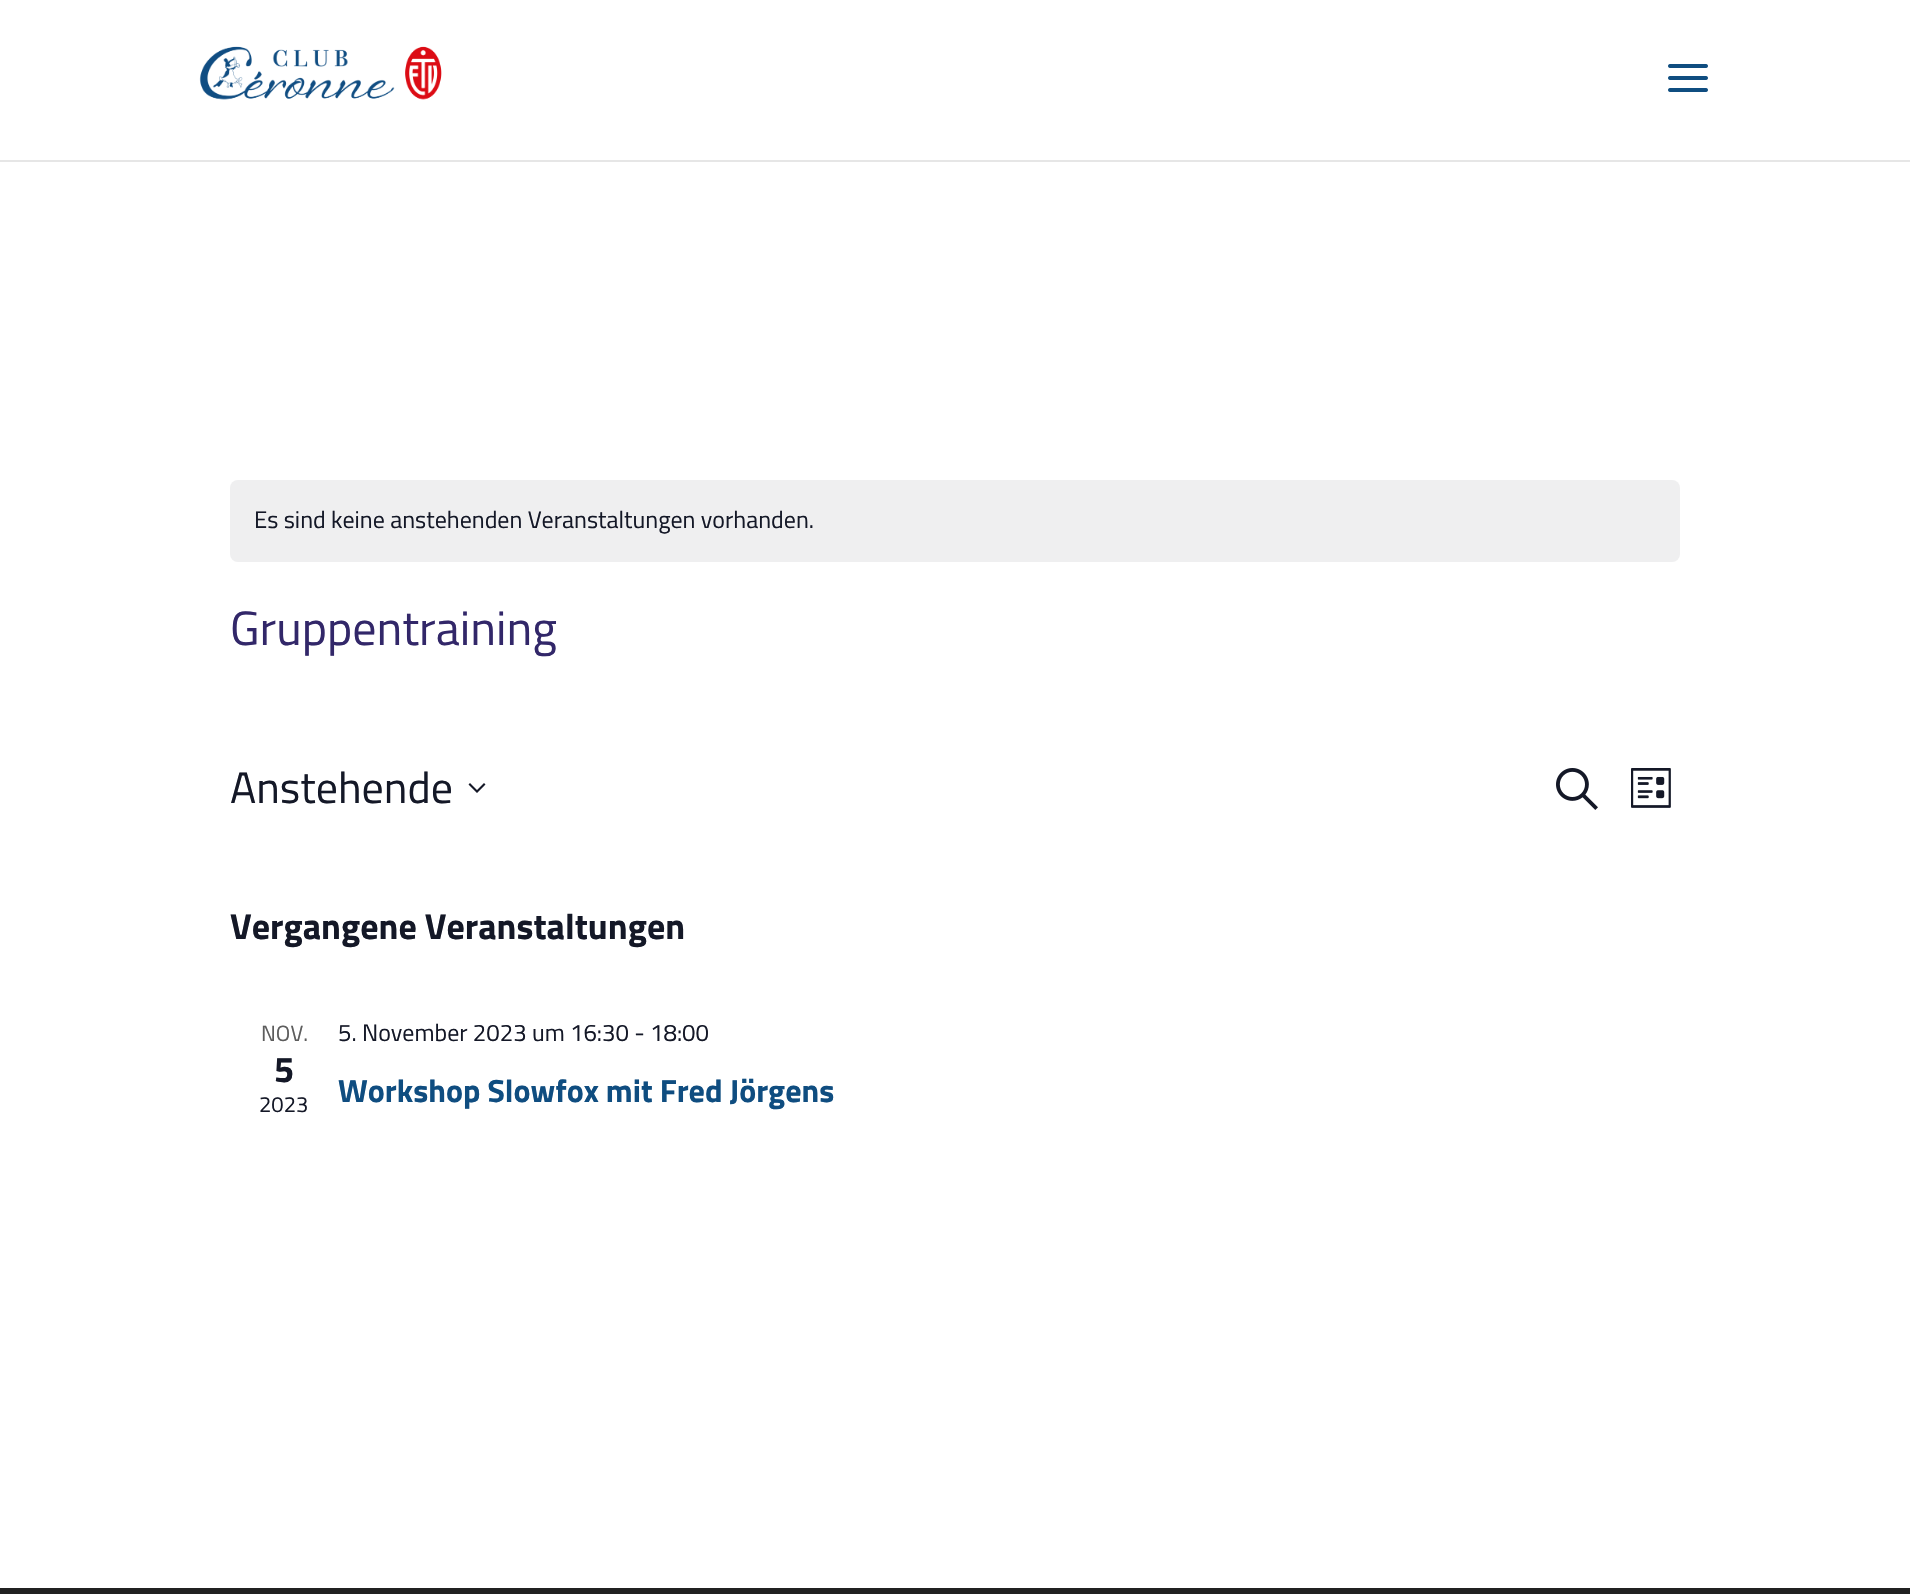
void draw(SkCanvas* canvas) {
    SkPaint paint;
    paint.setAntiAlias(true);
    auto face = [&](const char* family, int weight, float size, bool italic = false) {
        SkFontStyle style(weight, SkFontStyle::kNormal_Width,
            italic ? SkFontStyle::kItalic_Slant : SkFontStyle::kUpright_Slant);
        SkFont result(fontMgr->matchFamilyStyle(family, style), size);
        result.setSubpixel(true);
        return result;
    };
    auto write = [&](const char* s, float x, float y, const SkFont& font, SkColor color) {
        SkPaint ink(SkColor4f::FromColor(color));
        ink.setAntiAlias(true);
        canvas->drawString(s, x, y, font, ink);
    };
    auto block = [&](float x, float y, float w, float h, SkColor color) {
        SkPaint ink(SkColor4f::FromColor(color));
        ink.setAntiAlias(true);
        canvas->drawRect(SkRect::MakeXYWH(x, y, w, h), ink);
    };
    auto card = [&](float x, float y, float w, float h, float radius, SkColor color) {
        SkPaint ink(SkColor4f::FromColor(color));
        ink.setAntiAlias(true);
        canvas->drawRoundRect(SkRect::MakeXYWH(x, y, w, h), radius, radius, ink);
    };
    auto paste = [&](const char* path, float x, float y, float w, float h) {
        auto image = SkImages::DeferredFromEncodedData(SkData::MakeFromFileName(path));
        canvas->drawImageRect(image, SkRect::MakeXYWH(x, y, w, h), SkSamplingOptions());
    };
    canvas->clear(SK_ColorWHITE);
    block(0, 160, 1910, 2, SkColorSetRGB(230, 230, 230));
    paste("pic1.png", 199, 46, 243, 54);
    paste("pic2.png", 1668, 64, 40, 28);
    card(230, 480, 1450, 82, 8, SkColorSetRGB(239, 239, 240));
    auto kFont1 = face("Titillium Web", 400, 24);
    write("Es sind keine anstehenden Veranstaltungen vorhanden.", 254, 528, kFont1, SkColorSetRGB(20, 24, 39));
    auto kFont2 = face("Titillium Web", 400, 48);
    write("Gruppentraining", 230, 645, kFont2, SkColorSetRGB(50, 39, 105));
    auto kFont3 = face("Titillium Web", 400, 44);
    write("Anstehende", 230, 803, kFont3, SkColorSetRGB(20, 24, 39));
    paint.setColor(SkColorSetRGB(20, 24, 39));
    canvas->drawPath(SkPathBuilder(SkPathFillType::kEvenOdd).moveTo(470, 783).lineTo(477, 790).lineTo(484, 783).lineTo(485.5f, 784.5f).lineTo(477, 793).lineTo(468.5f, 784.5f).close().detach(), paint);
    paste("pic3.png", 1556, 768, 42, 42);
    paste("pic4.png", 1631, 768, 40, 40);
    auto kFont4 = face("Titillium Web", 700, 36);
    write("Vergangene Veranstaltungen", 230, 939, kFont4, SkColorSetRGB(20, 24, 39));
    auto kFont5 = face("Titillium Web", 400, 22);
    write("NOV.", 261, 1041, kFont5, SkColorSetRGB(93, 93, 93));
    write("5", 274, 1082, kFont4, SkColorSetRGB(20, 24, 39));
    write("2023", 259, 1112, kFont5, SkColorSetRGB(20, 24, 39));
    write("5. November 2023 um 16:30 - 18:00", 338, 1041, kFont1, SkColorSetRGB(20, 24, 39));
    auto kFont6 = face("Titillium Web", 700, 32);
    write("Workshop Slowfox mit Fred Jörgens", 338, 1102, kFont6, SkColorSetRGB(15, 77, 128));
    block(0, 1588, 1910, 6, SkColorSetRGB(33, 33, 33));
}
